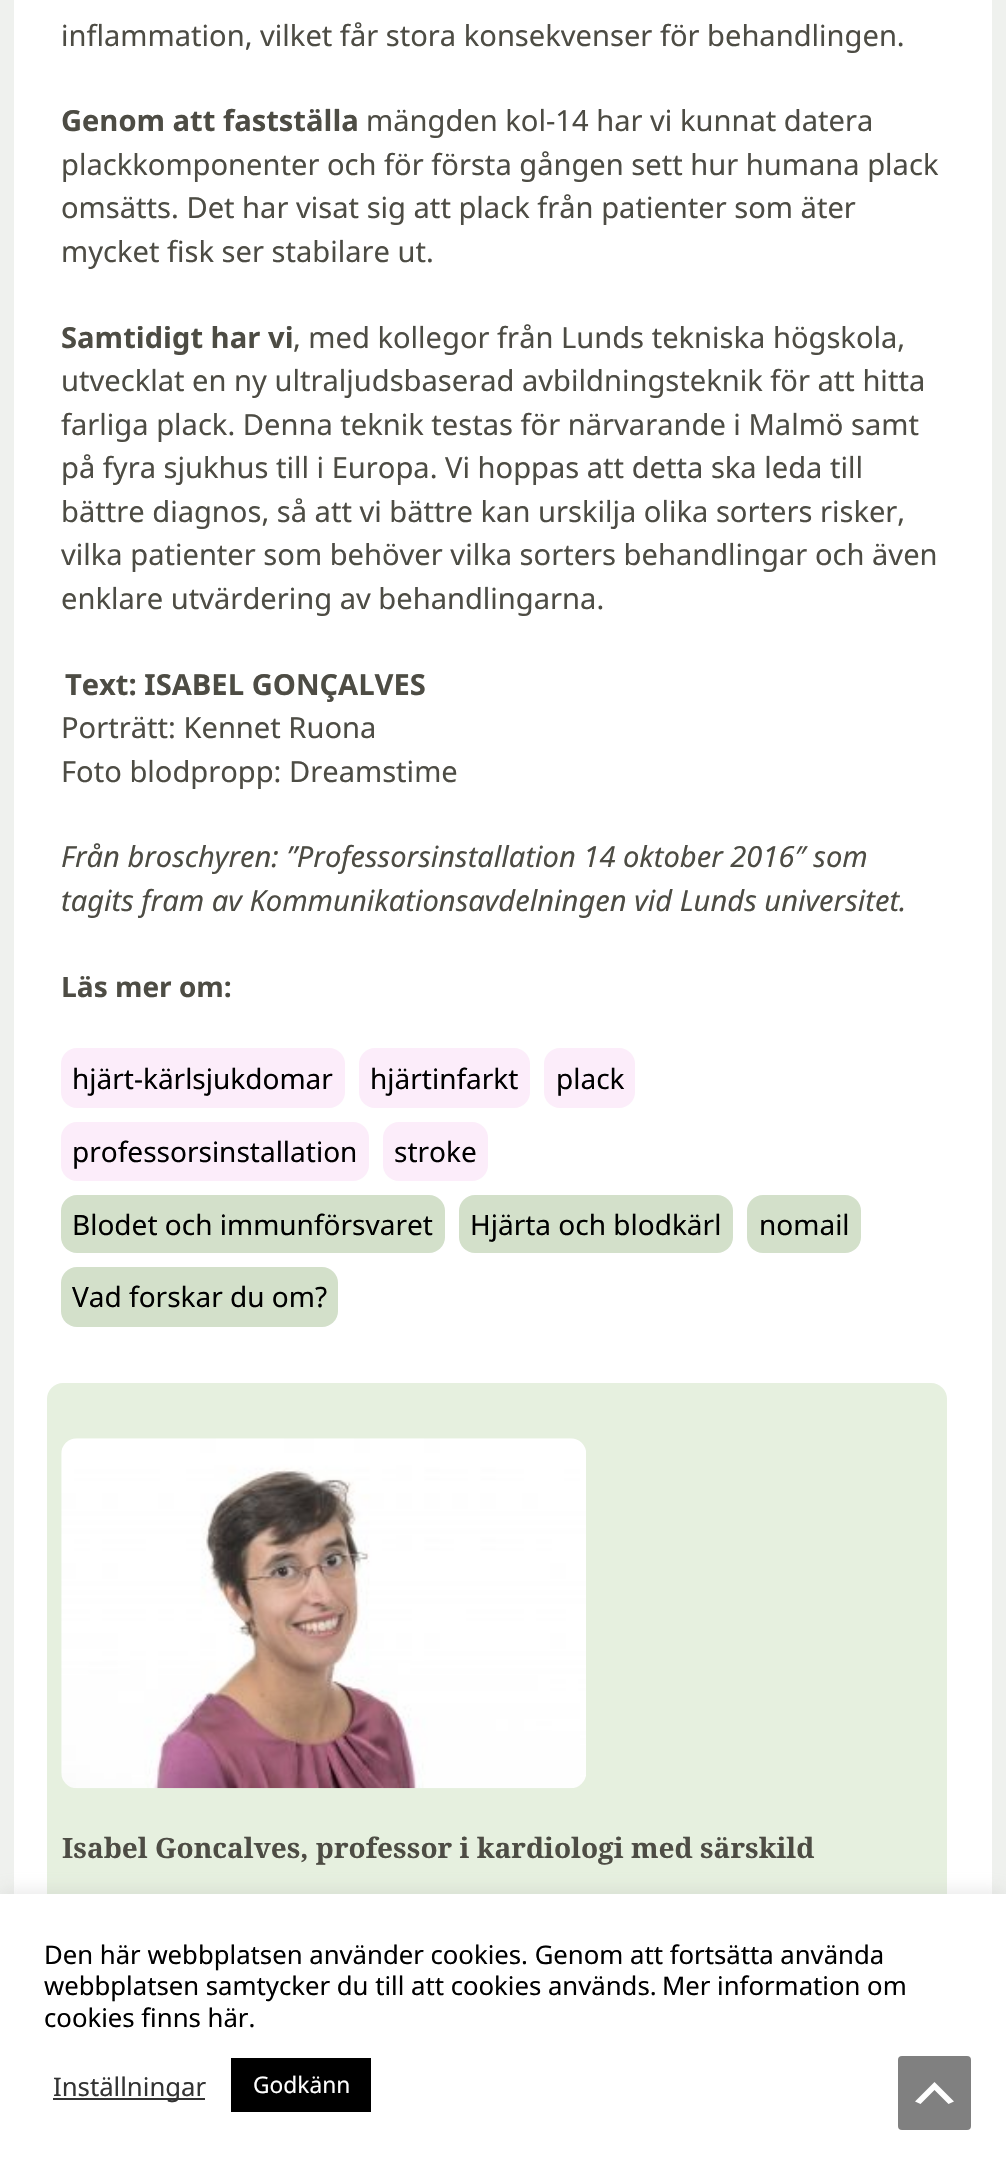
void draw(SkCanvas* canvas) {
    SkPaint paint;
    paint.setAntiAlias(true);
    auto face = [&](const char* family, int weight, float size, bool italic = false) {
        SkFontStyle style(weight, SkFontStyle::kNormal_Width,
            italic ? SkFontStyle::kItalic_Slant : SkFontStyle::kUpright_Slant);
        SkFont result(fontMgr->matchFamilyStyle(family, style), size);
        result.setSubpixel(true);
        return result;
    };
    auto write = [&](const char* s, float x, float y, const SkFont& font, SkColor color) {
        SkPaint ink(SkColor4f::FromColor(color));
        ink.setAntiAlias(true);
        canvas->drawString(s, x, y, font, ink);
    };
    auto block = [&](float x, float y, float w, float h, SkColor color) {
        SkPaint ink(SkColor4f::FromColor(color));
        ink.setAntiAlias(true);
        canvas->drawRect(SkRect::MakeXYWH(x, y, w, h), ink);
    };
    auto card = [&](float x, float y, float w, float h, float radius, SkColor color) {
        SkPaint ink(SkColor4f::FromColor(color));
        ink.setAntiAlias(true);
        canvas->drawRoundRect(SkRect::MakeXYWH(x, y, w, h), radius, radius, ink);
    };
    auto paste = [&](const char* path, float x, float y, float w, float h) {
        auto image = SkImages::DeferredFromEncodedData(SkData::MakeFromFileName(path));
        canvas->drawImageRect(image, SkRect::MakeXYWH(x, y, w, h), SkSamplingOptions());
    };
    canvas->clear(SkColorSetRGB(239, 241, 238));
    block(14, 0, 978, 1894, SK_ColorWHITE);
    auto kFont1 = face("Noto Sans", 400, 29.1f);
    write("inflammation, vilket får stora konsekvenser för behandlingen.", 61, 46, kFont1, SkColorSetRGB(77, 76, 68));
    auto kFont2 = face("Noto Sans", 700, 29.1f);
    write("Genom att fastställa", 61, 131, kFont2, SkColorSetRGB(77, 76, 68));
    write("mängden kol-14 har vi kunnat datera", 366, 131, kFont1, SkColorSetRGB(77, 76, 68));
    write("plackkomponenter och för första gången sett hur humana plack", 61, 175, kFont1, SkColorSetRGB(77, 76, 68));
    write("omsätts. Det har visat sig att plack från patienter som äter", 61, 218, kFont1, SkColorSetRGB(77, 76, 68));
    write("mycket fisk ser stabilare ut.", 61, 262, kFont1, SkColorSetRGB(77, 76, 68));
    write("Samtidigt har vi", 61, 348, kFont2, SkColorSetRGB(77, 76, 68));
    write(", med kollegor från Lunds tekniska högskola,", 293, 348, kFont1, SkColorSetRGB(77, 76, 68));
    write("utvecklat en ny ultraljudsbaserad avbildningsteknik för att hitta", 61, 391, kFont1, SkColorSetRGB(77, 76, 68));
    write("farliga plack. Denna teknik testas för närvarande i Malmö samt", 61, 435, kFont1, SkColorSetRGB(77, 76, 68));
    write("på fyra sjukhus till i Europa. Vi hoppas att detta ska leda till", 61, 478, kFont1, SkColorSetRGB(77, 76, 68));
    write("bättre diagnos, så att vi bättre kan urskilja olika sorters risker,", 61, 522, kFont1, SkColorSetRGB(77, 76, 68));
    write("vilka patienter som behöver vilka sorters behandlingar och även", 61, 565, kFont1, SkColorSetRGB(77, 76, 68));
    write("enklare utvärdering av behandlingarna.", 61, 609, kFont1, SkColorSetRGB(77, 76, 68));
    write("Text: ISABEL GONÇALVES", 65, 695, kFont2, SkColorSetRGB(77, 76, 68));
    write("Porträtt: Kennet Ruona", 61, 738, kFont1, SkColorSetRGB(77, 76, 68));
    write("Foto blodpropp: Dreamstime", 61, 782, kFont1, SkColorSetRGB(77, 76, 68));
    auto kFont3 = face("Noto Sans", 400, 29.1f, true);
    write("Från broschyren: ”Professorsinstallation 14 oktober 2016″ som", 61, 867, kFont3, SkColorSetRGB(77, 76, 68));
    write("tagits fram av Kommunikationsavdelningen vid Lunds universitet.", 61, 911, kFont3, SkColorSetRGB(77, 76, 68));
    auto kFont4 = face("Noto Sans", 700, 28);
    write("Läs mer om:", 61, 997, kFont4, SkColorSetRGB(77, 76, 68));
    card(61, 1048, 284, 60, 16, SkColorSetRGB(252, 237, 250));
    auto kFont5 = face("Noto Sans", 400, 28);
    write("hjärt-kärlsjukdomar", 72, 1089, kFont5, SK_ColorBLACK);
    card(359, 1048, 171, 60, 16, SkColorSetRGB(252, 237, 250));
    write("hjärtinfarkt", 370, 1089, kFont5, SK_ColorBLACK);
    card(544, 1048, 91, 60, 16, SkColorSetRGB(252, 237, 250));
    write("plack", 556, 1089, kFont5, SK_ColorBLACK);
    card(61, 1122, 308, 59, 16, SkColorSetRGB(252, 237, 250));
    write("professorsinstallation", 72, 1162, kFont5, SK_ColorBLACK);
    card(383, 1122, 105, 59, 16, SkColorSetRGB(252, 237, 250));
    write("stroke", 394, 1162, kFont5, SK_ColorBLACK);
    card(61, 1195, 384, 58, 16, SkColorSetRGB(211, 224, 202));
    write("Blodet och immunförsvaret", 72, 1235, kFont5, SK_ColorBLACK);
    card(459, 1195, 274, 58, 16, SkColorSetRGB(211, 224, 202));
    write("Hjärta och blodkärl", 470, 1235, kFont5, SK_ColorBLACK);
    card(747, 1195, 114, 58, 16, SkColorSetRGB(211, 224, 202));
    write("nomail", 759, 1235, kFont5, SK_ColorBLACK);
    card(61, 1267, 277, 60, 16, SkColorSetRGB(211, 224, 202));
    write("Vad forskar du om?", 72, 1307, kFont5, SK_ColorBLACK);
    card(47, 1383, 900, 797, 16, SkColorSetRGB(230, 240, 223));
    paste("pic1.png", 61, 1438, 525, 351);
    auto kFont6 = face("Noto Serif", 700, 28);
    write("Isabel Goncalves, professor i kardiologi med särskild", 62, 1858, kFont6, SkColorSetRGB(77, 76, 68));
    paint.setColor(SkColorSetARGB(77, 172, 171, 171));
    paint.setMaskFilter(SkMaskFilter::MakeBlur(kNormal_SkBlurStyle, 9));
    canvas->drawRect(SkRect::MakeXYWH(0, 1892, 1006, 271), paint);
    paint.setMaskFilter(nullptr);
    block(0, 1894, 1006, 270, SK_ColorWHITE);
    auto kFont7 = face("Noto Sans", 400, 25.7f);
    write("Den här webbplatsen använder cookies. Genom att fortsätta använda", 44, 1964, kFont7, SK_ColorBLACK);
    write("webbplatsen samtycker du till att cookies används.", 44, 1995, kFont7, SK_ColorBLACK);
    write("Mer information om", 662, 1995, kFont7, SK_ColorBLACK);
    write("cookies finns här.", 44, 2027, kFont7, SK_ColorBLACK);
    block(53, 2098, 152, 2, SkColorSetRGB(51, 51, 51));
    write("Inställningar", 53, 2096, kFont7, SkColorSetRGB(51, 51, 51));
    block(231, 2058, 140, 54, SK_ColorBLACK);
    auto kFont8 = face("Noto Sans", 400, 22.75f);
    write("Godkänn", 253, 2093, kFont8, SK_ColorWHITE);
    card(898, 2056, 73, 74, 4, SkColorSetRGB(128, 128, 128));
    paint.setColor(SK_ColorWHITE);
    canvas->drawPath(SkPathBuilder().moveTo(948.5f, 2104).lineTo(934.5f, 2090).lineTo(920.5f, 2104).lineTo(915, 2101.5f).lineTo(934.5f, 2082).lineTo(954, 2101.5f).close().detach(), paint);
}
